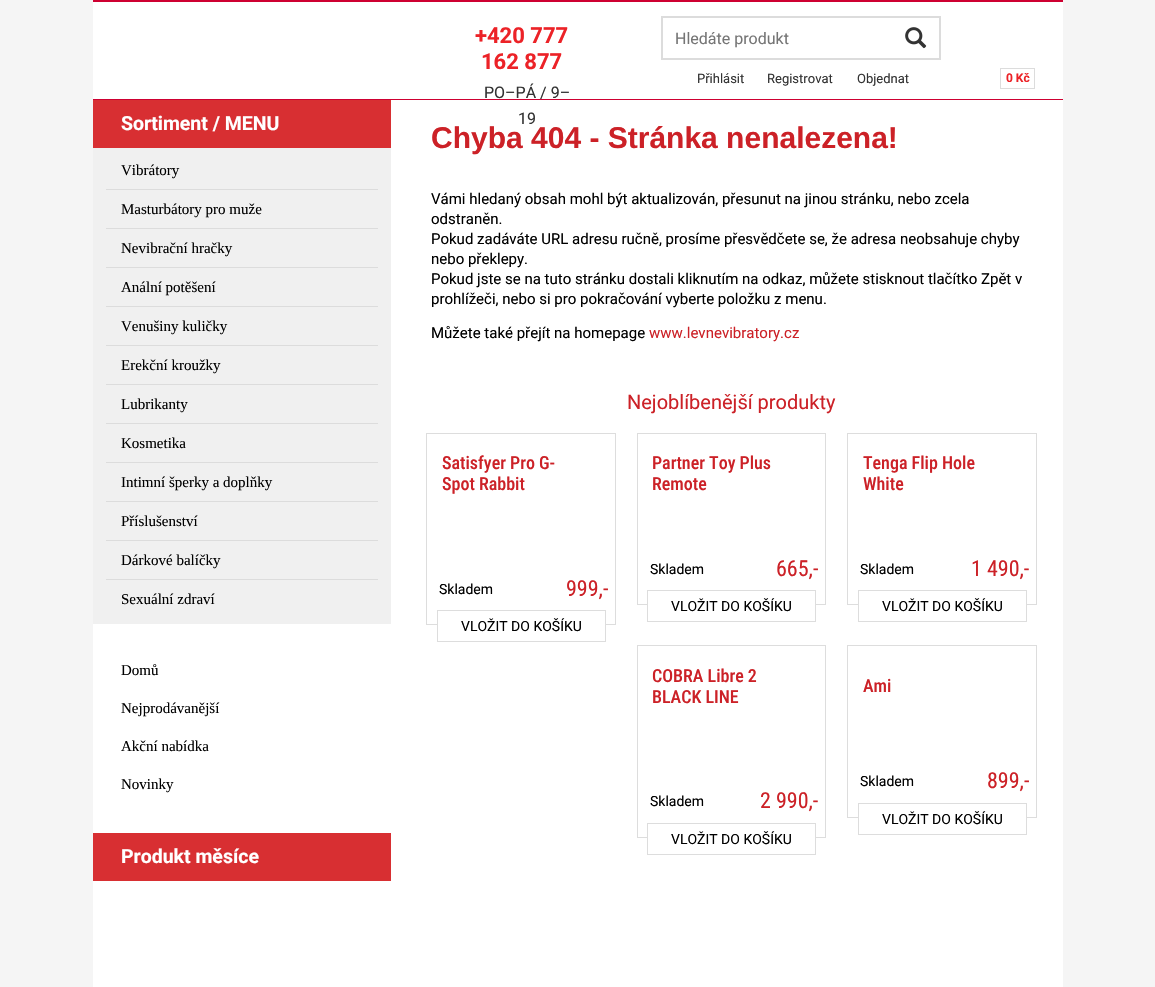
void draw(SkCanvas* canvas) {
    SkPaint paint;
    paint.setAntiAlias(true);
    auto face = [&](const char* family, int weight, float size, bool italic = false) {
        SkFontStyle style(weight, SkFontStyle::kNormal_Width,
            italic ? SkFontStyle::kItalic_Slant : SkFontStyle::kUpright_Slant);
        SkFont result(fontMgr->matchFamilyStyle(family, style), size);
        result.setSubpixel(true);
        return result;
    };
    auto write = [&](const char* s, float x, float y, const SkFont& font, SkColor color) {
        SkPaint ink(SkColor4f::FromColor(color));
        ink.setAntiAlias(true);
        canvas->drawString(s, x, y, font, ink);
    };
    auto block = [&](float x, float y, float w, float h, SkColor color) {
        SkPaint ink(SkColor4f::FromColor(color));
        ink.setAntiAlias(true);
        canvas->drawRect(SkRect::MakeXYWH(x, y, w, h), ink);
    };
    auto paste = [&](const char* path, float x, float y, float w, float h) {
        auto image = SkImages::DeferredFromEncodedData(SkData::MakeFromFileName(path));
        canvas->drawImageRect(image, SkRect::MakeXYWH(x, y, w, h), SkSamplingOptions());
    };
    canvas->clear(SkColorSetRGB(245, 245, 245));
    block(93, 2, 970, 97, SK_ColorWHITE);
    block(93, 0, 970, 2, SkColorSetRGB(206, 0, 49));
    block(93, 99, 970, 1, SkColorSetRGB(206, 0, 49));
    auto kFont1 = face("Roboto", 700, 22);
    write("+420 777", 475, 43, kFont1, SkColorSetRGB(236, 34, 39));
    write("162 877", 481, 69, kFont1, SkColorSetRGB(236, 34, 39));
    auto kFont2 = face("Roboto", 400, 16);
    write("PO–PÁ / 9–", 484, 98, kFont2, SkColorSetRGB(51, 51, 51));
    block(93, 100, 970, 887, SK_ColorWHITE);
    write("19", 518, 124, kFont2, SkColorSetRGB(51, 51, 51));
    paint.setStyle(SkPaint::kStroke_Style);
    paint.setStrokeWidth(2);
    paint.setColor(SkColorSetRGB(220, 220, 220));
    canvas->drawRect(SkRect::MakeXYWH(662, 17, 278, 42), paint);
    write("Hledáte produkt", 675, 44, kFont2, SkColorSetRGB(117, 117, 117));
    paste("pic1.png", 905, 27, 22, 22);
    auto kFont3 = face("Roboto", 400, 13);
    write("Přihlásit", 697, 83, kFont3, SkColorSetRGB(51, 51, 51));
    write("Registrovat", 767, 83, kFont3, SkColorSetRGB(51, 51, 51));
    write("Objednat", 857, 83, kFont3, SkColorSetRGB(51, 51, 51));
    paint.setStrokeWidth(1);
    canvas->drawRect(SkRect::MakeXYWH(1000.5f, 68.5f, 34, 20), paint);
    auto kFont4 = face("Roboto", 700, 12);
    write("0 Kč", 1006, 82, kFont4, SkColorSetRGB(236, 34, 39));
    block(93, 100, 298, 48, SkColorSetRGB(216, 47, 50));
    auto kFont5 = face("Roboto", 700, 19.5f);
    write("Sortiment / MENU", 121, 130, kFont5, SK_ColorWHITE);
    block(93, 148, 298, 476, SkColorSetRGB(240, 240, 240));
    auto kFont6 = face("Liberation Serif", 400, 15);
    write("Vibrátory", 121, 175, kFont6, SK_ColorBLACK);
    block(106, 189, 272, 1, SkColorSetRGB(220, 220, 220));
    write("Masturbátory pro muže", 121, 214, kFont6, SK_ColorBLACK);
    block(106, 228, 272, 1, SkColorSetRGB(220, 220, 220));
    write("Nevibrační hračky", 121, 253, kFont6, SK_ColorBLACK);
    block(106, 267, 272, 1, SkColorSetRGB(220, 220, 220));
    write("Anální potěšení", 121, 292, kFont6, SK_ColorBLACK);
    block(106, 306, 272, 1, SkColorSetRGB(220, 220, 220));
    write("Venušiny kuličky", 121, 331, kFont6, SK_ColorBLACK);
    block(106, 345, 272, 1, SkColorSetRGB(220, 220, 220));
    write("Erekční kroužky", 121, 370, kFont6, SK_ColorBLACK);
    block(106, 384, 272, 1, SkColorSetRGB(220, 220, 220));
    write("Lubrikanty", 121, 409, kFont6, SK_ColorBLACK);
    block(106, 423, 272, 1, SkColorSetRGB(220, 220, 220));
    write("Kosmetika", 121, 448, kFont6, SK_ColorBLACK);
    block(106, 462, 272, 1, SkColorSetRGB(220, 220, 220));
    write("Intimní šperky a doplňky", 121, 487, kFont6, SK_ColorBLACK);
    block(106, 501, 272, 1, SkColorSetRGB(220, 220, 220));
    write("Příslušenství", 121, 526, kFont6, SK_ColorBLACK);
    block(106, 540, 272, 1, SkColorSetRGB(220, 220, 220));
    write("Dárkové balíčky", 121, 565, kFont6, SK_ColorBLACK);
    block(106, 579, 272, 1, SkColorSetRGB(220, 220, 220));
    write("Sexuální zdraví", 121, 604, kFont6, SK_ColorBLACK);
    write("Domů", 121, 675, kFont6, SK_ColorBLACK);
    write("Nejprodávanější", 121, 713, kFont6, SK_ColorBLACK);
    write("Akční nabídka", 121, 751, kFont6, SK_ColorBLACK);
    write("Novinky", 121, 789, kFont6, SK_ColorBLACK);
    block(93, 833, 298, 48, SkColorSetRGB(216, 47, 50));
    write("Produkt měsíce", 121, 863, kFont5, SK_ColorWHITE);
    auto kFont7 = face("Liberation Sans", 700, 30);
    write("Chyba 404 - Stránka nenalezena!", 431, 148, kFont7, SkColorSetRGB(204, 33, 39));
    auto kFont8 = face("Roboto", 400, 15);
    write("Vámi hledaný obsah mohl být aktualizován, přesunut na jinou stránku, nebo zcela", 431, 204, kFont8, SK_ColorBLACK);
    write("odstraněn.", 431, 224, kFont8, SK_ColorBLACK);
    write("Pokud zadáváte URL adresu ručně, prosíme přesvědčete se, že adresa neobsahuje chyby", 431, 244, kFont8, SK_ColorBLACK);
    write("nebo překlepy.", 431, 264, kFont8, SK_ColorBLACK);
    write("Pokud jste se na tuto stránku dostali kliknutím na odkaz, můžete stisknout tlačítko Zpět v", 431, 284, kFont8, SK_ColorBLACK);
    write("prohlížeči, nebo si pro pokračování vyberte položku z menu.", 431, 304, kFont8, SK_ColorBLACK);
    write("Můžete také přejít na homepage", 431, 338, kFont8, SK_ColorBLACK);
    write("www.levnevibratory.cz", 649, 338, kFont8, SkColorSetRGB(204, 33, 39));
    auto kFont9 = face("Roboto", 400, 20);
    write("Nejoblíbenější produkty", 627, 409, kFont9, SkColorSetRGB(204, 33, 39));
    paint.setColor(SkColorSetRGB(221, 221, 221));
    canvas->drawRect(SkRect::MakeXYWH(426.5f, 433.5f, 189, 191), paint);
    auto kFont10 = face("Roboto Condensed", 500, 18);
    write("Satisfyer Pro G-", 442, 469, kFont10, SkColorSetRGB(204, 33, 39));
    write("Spot Rabbit", 442, 490, kFont10, SkColorSetRGB(204, 33, 39));
    auto kFont11 = face("Roboto", 400, 14);
    write("Skladem", 439, 594, kFont11, SK_ColorBLACK);
    auto kFont12 = face("Roboto Condensed", 400, 22);
    write("999,-", 566, 596, kFont12, SkColorSetRGB(204, 33, 39));
    block(438, 624, 167, 1, SK_ColorWHITE);
    canvas->drawRect(SkRect::MakeXYWH(437.5f, 610.5f, 168, 31), paint);
    write("VLOŽIT DO KOŠÍKU", 461, 631, kFont11, SK_ColorBLACK);
    canvas->drawRect(SkRect::MakeXYWH(637.5f, 433.5f, 188, 171), paint);
    write("Partner Toy Plus", 652, 469, kFont10, SkColorSetRGB(204, 33, 39));
    write("Remote", 652, 490, kFont10, SkColorSetRGB(204, 33, 39));
    write("Skladem", 650, 574, kFont11, SK_ColorBLACK);
    write("665,-", 776, 576, kFont12, SkColorSetRGB(204, 33, 39));
    block(648, 604, 167, 1, SK_ColorWHITE);
    canvas->drawRect(SkRect::MakeXYWH(647.5f, 590.5f, 168, 31), paint);
    write("VLOŽIT DO KOŠÍKU", 671, 611, kFont11, SK_ColorBLACK);
    canvas->drawRect(SkRect::MakeXYWH(847.5f, 433.5f, 189, 171), paint);
    write("Tenga Flip Hole", 863, 469, kFont10, SkColorSetRGB(204, 33, 39));
    write("White", 863, 490, kFont10, SkColorSetRGB(204, 33, 39));
    write("Skladem", 860, 574, kFont11, SK_ColorBLACK);
    write("1 490,-", 971, 576, kFont12, SkColorSetRGB(204, 33, 39));
    block(859, 604, 167, 1, SK_ColorWHITE);
    canvas->drawRect(SkRect::MakeXYWH(858.5f, 590.5f, 168, 31), paint);
    write("VLOŽIT DO KOŠÍKU", 882, 611, kFont11, SK_ColorBLACK);
    canvas->drawRect(SkRect::MakeXYWH(637.5f, 645.5f, 188, 192), paint);
    write("COBRA Libre 2", 652, 682, kFont10, SkColorSetRGB(204, 33, 39));
    write("BLACK LINE", 652, 703, kFont10, SkColorSetRGB(204, 33, 39));
    write("Skladem", 650, 806, kFont11, SK_ColorBLACK);
    write("2 990,-", 760, 808, kFont12, SkColorSetRGB(204, 33, 39));
    block(648, 837, 167, 1, SK_ColorWHITE);
    canvas->drawRect(SkRect::MakeXYWH(647.5f, 823.5f, 168, 31), paint);
    write("VLOŽIT DO KOŠÍKU", 671, 844, kFont11, SK_ColorBLACK);
    canvas->drawRect(SkRect::MakeXYWH(847.5f, 645.5f, 189, 172), paint);
    write("Ami", 863, 692, kFont10, SkColorSetRGB(204, 33, 39));
    write("Skladem", 860, 786, kFont11, SK_ColorBLACK);
    write("899,-", 987, 788, kFont12, SkColorSetRGB(204, 33, 39));
    block(859, 817, 167, 1, SK_ColorWHITE);
    canvas->drawRect(SkRect::MakeXYWH(858.5f, 803.5f, 168, 31), paint);
    write("VLOŽIT DO KOŠÍKU", 882, 824, kFont11, SK_ColorBLACK);
}
